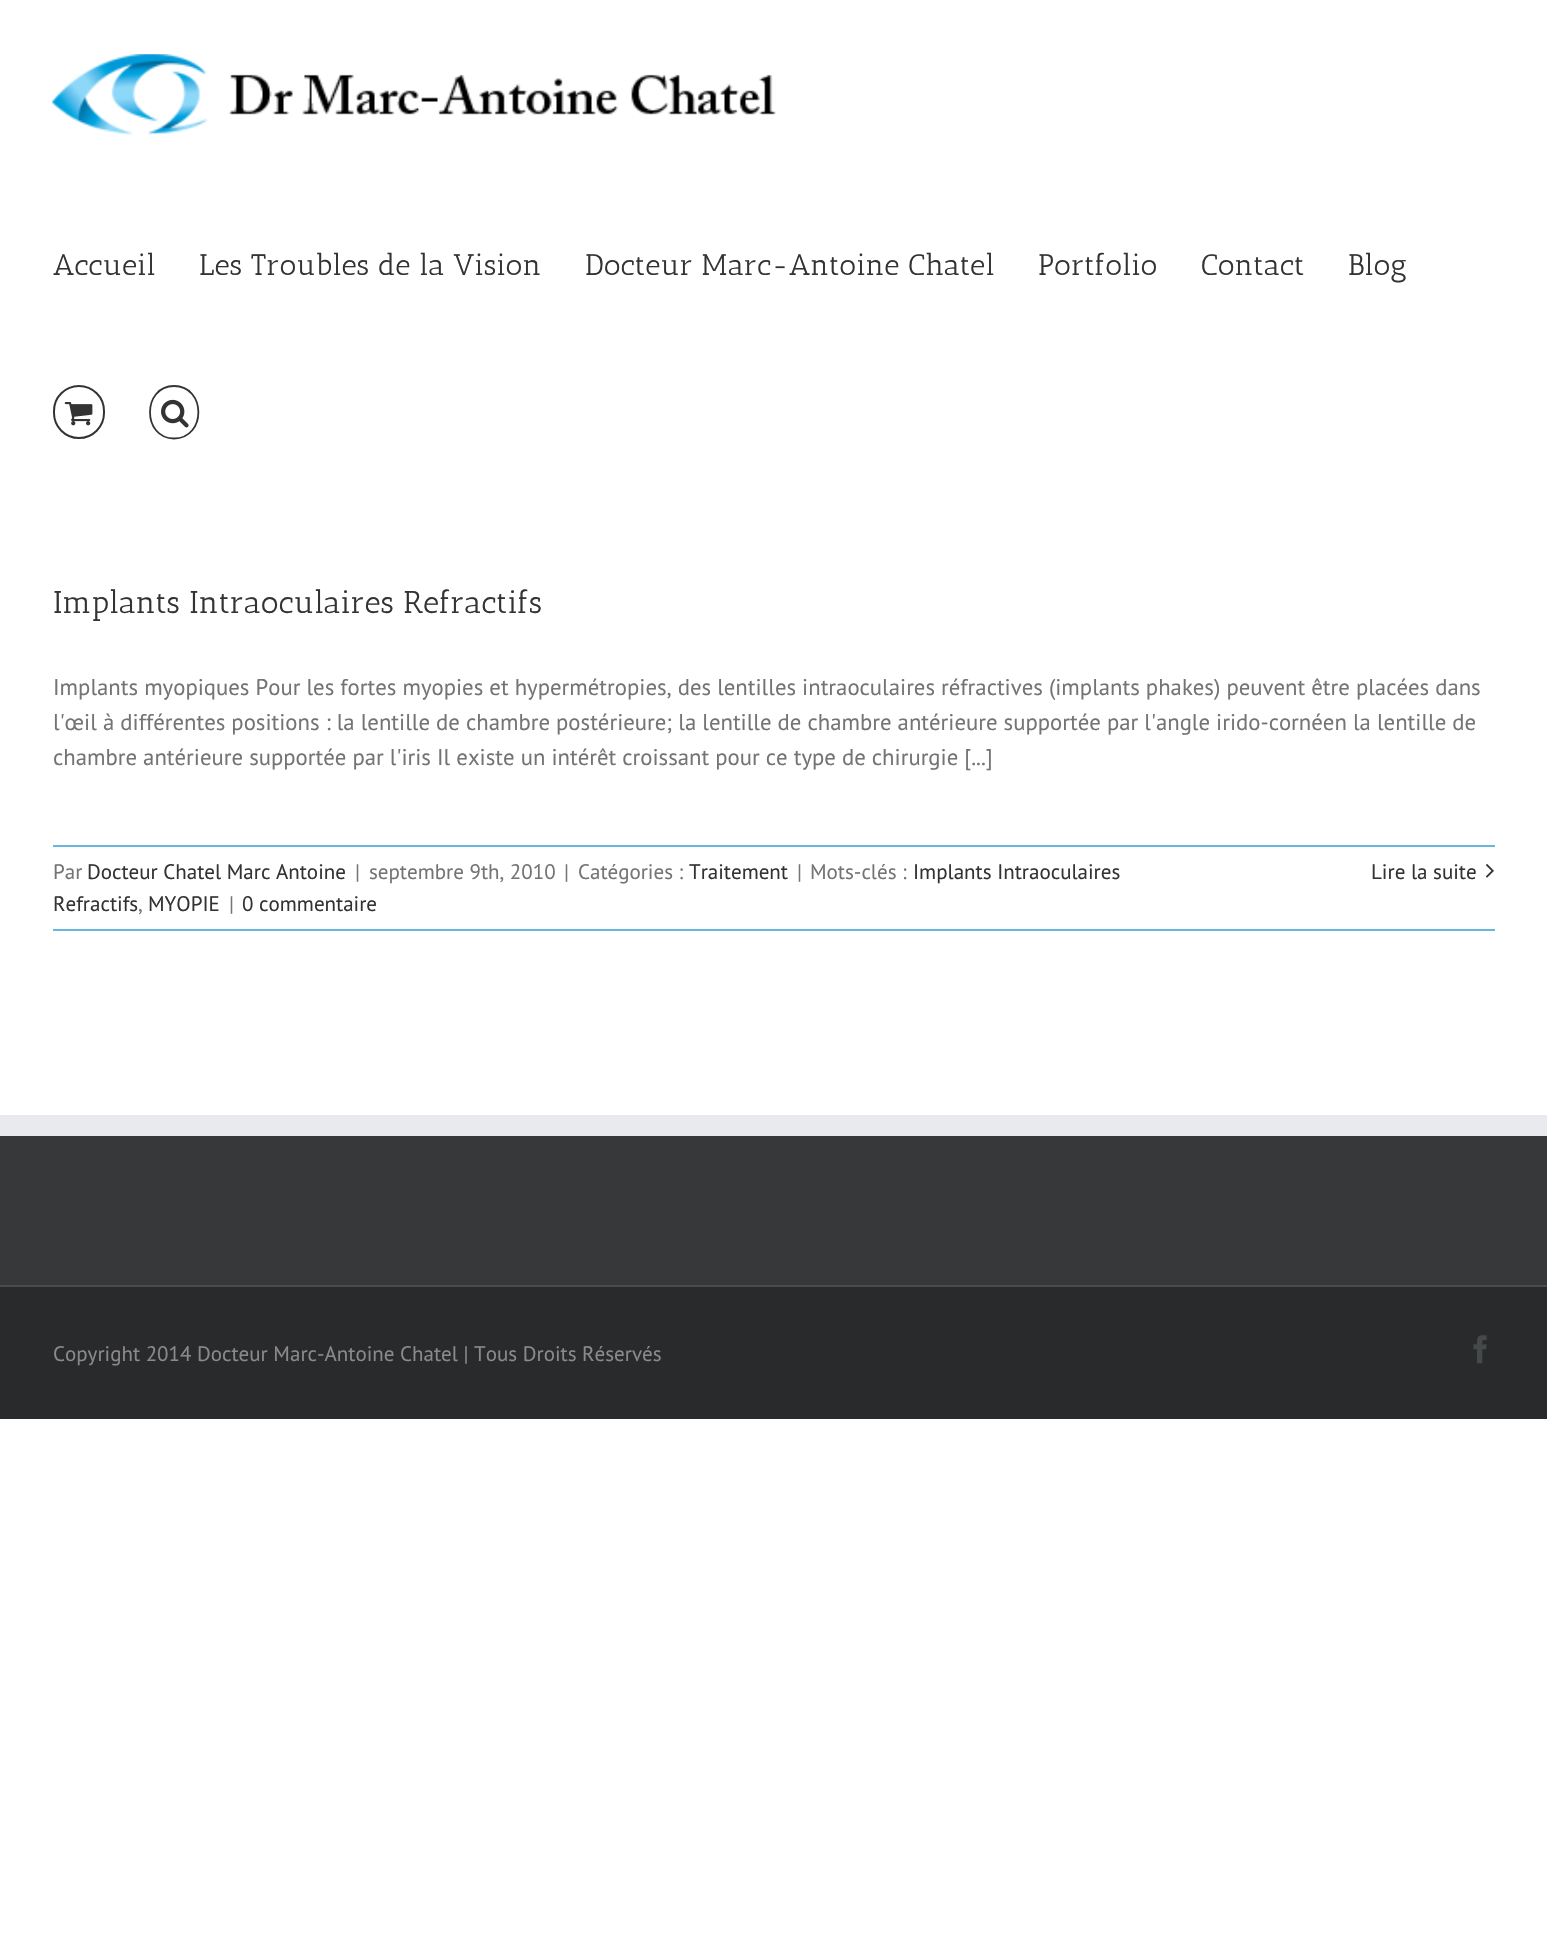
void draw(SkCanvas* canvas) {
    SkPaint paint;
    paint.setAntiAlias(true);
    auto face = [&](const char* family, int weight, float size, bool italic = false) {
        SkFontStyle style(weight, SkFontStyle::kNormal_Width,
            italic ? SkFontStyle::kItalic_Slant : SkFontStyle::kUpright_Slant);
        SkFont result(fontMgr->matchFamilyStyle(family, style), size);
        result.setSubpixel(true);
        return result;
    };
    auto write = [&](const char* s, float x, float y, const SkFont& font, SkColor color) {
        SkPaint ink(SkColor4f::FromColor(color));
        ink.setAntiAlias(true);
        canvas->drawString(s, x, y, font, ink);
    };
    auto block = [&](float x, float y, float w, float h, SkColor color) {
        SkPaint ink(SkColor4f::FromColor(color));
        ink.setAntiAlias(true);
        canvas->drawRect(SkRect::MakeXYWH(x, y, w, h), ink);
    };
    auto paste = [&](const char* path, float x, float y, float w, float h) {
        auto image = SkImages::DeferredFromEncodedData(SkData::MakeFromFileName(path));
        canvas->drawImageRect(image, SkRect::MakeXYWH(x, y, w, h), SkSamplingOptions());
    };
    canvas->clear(SK_ColorWHITE);
    paste("pic1.png", 52, 54, 724, 81);
    auto kFont1 = face("Antic Slab", 400, 29.75f);
    write("Accueil", 53, 275, kFont1, SkColorSetRGB(51, 51, 51));
    write("Les Troubles de la Vision", 199, 275, kFont1, SkColorSetRGB(51, 51, 51));
    write("Docteur Marc-Antoine Chatel", 585, 275, kFont1, SkColorSetRGB(51, 51, 51));
    write("Portfolio", 1038, 275, kFont1, SkColorSetRGB(51, 51, 51));
    write("Contact", 1201, 275, kFont1, SkColorSetRGB(51, 51, 51));
    write("Blog", 1348, 275, kFont1, SkColorSetRGB(51, 51, 51));
    paint.setStyle(SkPaint::kStroke_Style);
    paint.setStrokeWidth(2);
    paint.setColor(SkColorSetRGB(51, 51, 51));
    canvas->drawRoundRect(SkRect::MakeXYWH(54, 386, 50, 52), 25, 25, paint);
    paste("pic2.png", 64, 402, 29, 24);
    paint.setStrokeWidth(1.8f);
    canvas->drawPath(SkPathBuilder().moveTo(174, 386).cubicTo(206.5f, 386, 206.5f, 438.5f, 174, 438.5f).cubicTo(142, 438.5f, 142, 386, 174, 386).close().detach(), paint);
    paste("pic3.png", 161, 399, 28, 29);
    auto kFont2 = face("Antic Slab", 400, 31.5f);
    write("Implants Intraoculaires Refractifs", 53, 613, kFont2, SkColorSetRGB(51, 51, 51));
    auto kFont3 = face("PT Sans", 400, 22.75f);
    write("Implants myopiques Pour les fortes myopies et hypermétropies, des lentilles intraoculaires réfractives (implants phakes) peuvent être placées dans", 53, 695, kFont3, SkColorSetRGB(116, 116, 116));
    write("l'œil à différentes positions : la lentille de chambre postérieure; la lentille de chambre antérieure supportée par l'angle irido-cornéen la lentille de", 53, 730, kFont3, SkColorSetRGB(116, 116, 116));
    write("chambre antérieure supportée par l'iris Il existe un intérêt croissant pour ce type de chirurgie [...]", 53, 765, kFont3, SkColorSetRGB(116, 116, 116));
    block(53, 845, 1442, 2, SkColorSetRGB(103, 183, 225));
    block(53, 929, 1442, 2, SkColorSetRGB(103, 183, 225));
    auto kFont4 = face("PT Sans", 400, 21);
    write("Par", 53, 879, kFont4, SkColorSetRGB(116, 116, 116));
    write("Docteur Chatel Marc Antoine", 87, 879, kFont4, SkColorSetRGB(51, 51, 51));
    write("|", 355, 879, kFont4, SkColorSetRGB(116, 116, 116));
    write("septembre 9th, 2010", 369, 879, kFont4, SkColorSetRGB(116, 116, 116));
    write("|", 564, 879, kFont4, SkColorSetRGB(116, 116, 116));
    write("Catégories :", 578, 879, kFont4, SkColorSetRGB(116, 116, 116));
    write("Traitement", 689, 879, kFont4, SkColorSetRGB(51, 51, 51));
    write("|", 797, 879, kFont4, SkColorSetRGB(116, 116, 116));
    write("Mots-clés :", 810, 879, kFont4, SkColorSetRGB(116, 116, 116));
    write("Implants Intraoculaires", 913, 879, kFont4, SkColorSetRGB(51, 51, 51));
    write("Refractifs", 53, 911, kFont4, SkColorSetRGB(51, 51, 51));
    write(",", 138, 911, kFont4, SkColorSetRGB(116, 116, 116));
    write("MYOPIE", 148, 911, kFont4, SkColorSetRGB(51, 51, 51));
    write("|", 229, 911, kFont4, SkColorSetRGB(116, 116, 116));
    write("0 commentaire", 242, 911, kFont4, SkColorSetRGB(51, 51, 51));
    write("Lire la suite", 1371, 879, kFont4, SkColorSetRGB(51, 51, 51));
    paste("pic4.png", 1486, 864, 8, 14);
    block(0, 1136, 1547, 149, SkColorSetRGB(54, 56, 57));
    block(0, 1115, 1547, 21, SkColorSetRGB(233, 234, 238));
    block(0, 1287, 1547, 132, SkColorSetRGB(40, 42, 43));
    block(0, 1285, 1547, 2, SkColorSetRGB(75, 76, 77));
    write("Copyright 2014 Docteur Marc-Antoine Chatel | Tous Droits Réservés", 53, 1361, kFont4, SkColorSetRGB(140, 137, 137));
    paste("pic5.png", 1473, 1335, 14, 29);
}
